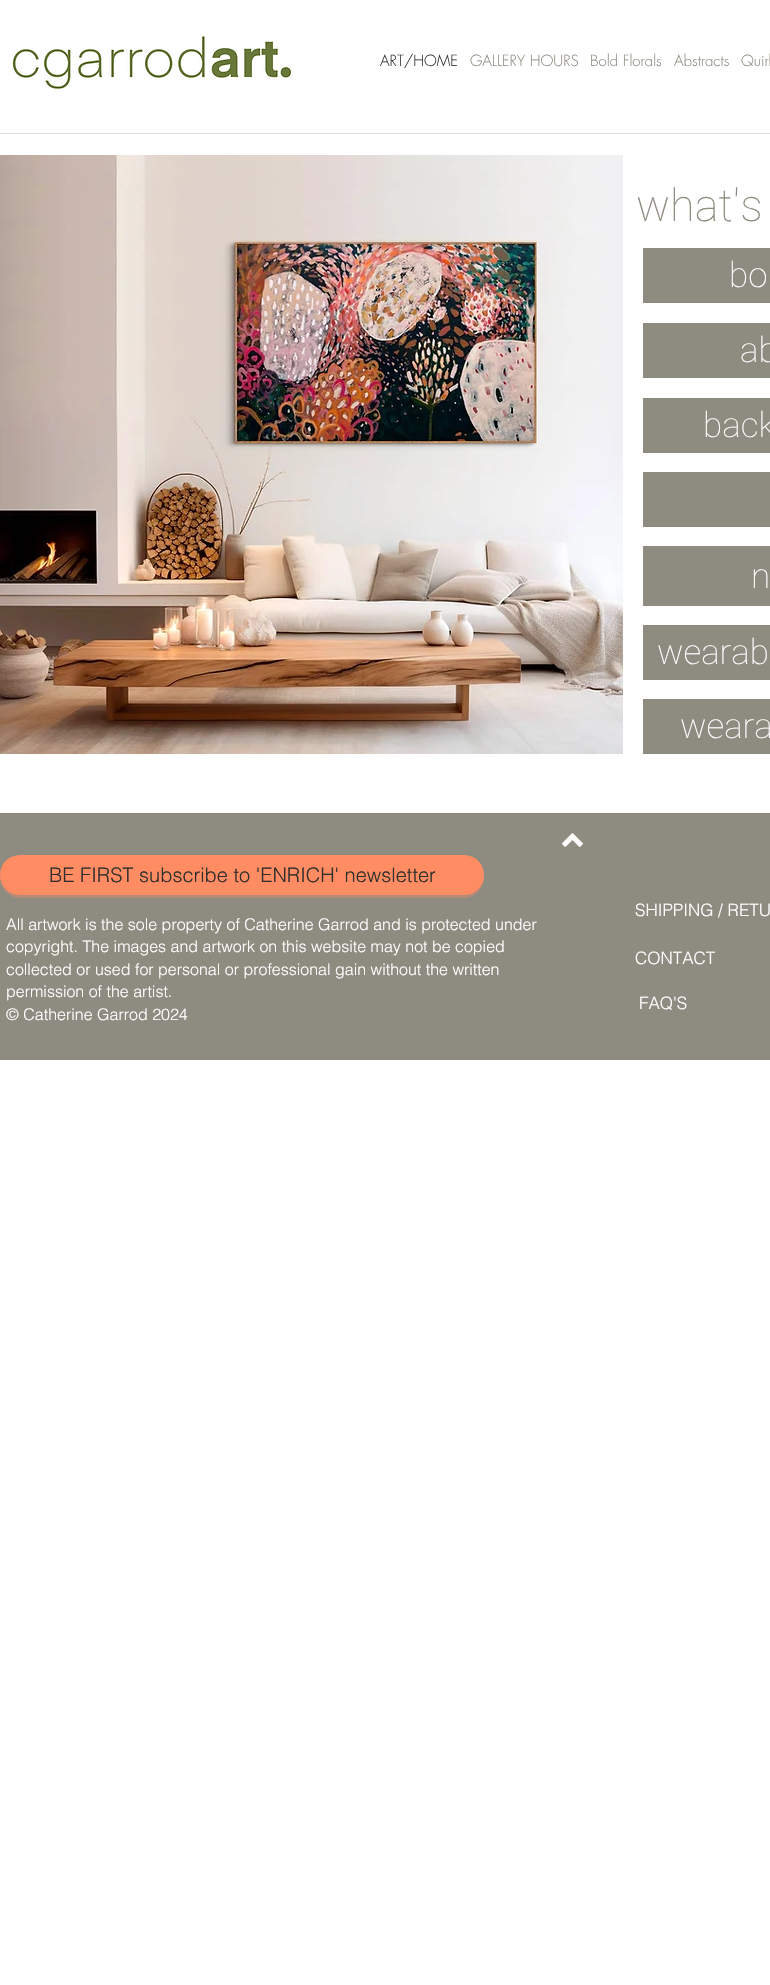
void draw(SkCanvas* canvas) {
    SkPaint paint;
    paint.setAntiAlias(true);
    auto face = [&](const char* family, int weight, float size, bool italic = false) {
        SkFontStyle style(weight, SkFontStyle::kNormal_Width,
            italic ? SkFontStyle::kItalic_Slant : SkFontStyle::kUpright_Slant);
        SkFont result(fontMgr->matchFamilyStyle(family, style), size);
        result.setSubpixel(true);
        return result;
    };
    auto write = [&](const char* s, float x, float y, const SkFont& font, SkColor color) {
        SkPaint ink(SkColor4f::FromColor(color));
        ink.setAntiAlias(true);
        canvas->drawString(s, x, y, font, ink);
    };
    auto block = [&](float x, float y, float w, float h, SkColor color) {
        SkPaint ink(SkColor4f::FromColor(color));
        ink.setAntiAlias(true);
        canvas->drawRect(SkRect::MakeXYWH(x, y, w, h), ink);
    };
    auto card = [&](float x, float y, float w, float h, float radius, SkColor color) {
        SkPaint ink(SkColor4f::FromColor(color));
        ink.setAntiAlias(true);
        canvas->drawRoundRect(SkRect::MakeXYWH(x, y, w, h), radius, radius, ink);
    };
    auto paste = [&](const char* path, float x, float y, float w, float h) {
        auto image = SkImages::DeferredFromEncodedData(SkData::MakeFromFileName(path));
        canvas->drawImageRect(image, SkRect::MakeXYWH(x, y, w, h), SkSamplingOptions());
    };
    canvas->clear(SK_ColorWHITE);
    paste("pic1.png", 12, 36, 281, 53);
    auto kFont1 = face("futura", 300, 15);
    write("ART/HOME", 380, 66, kFont1, SkColorSetRGB(47, 46, 43));
    write("GALLERY HOURS", 470, 66, kFont1, SkColorSetRGB(142, 139, 128));
    write("Bold Florals", 590, 66, kFont1, SkColorSetRGB(142, 139, 128));
    write("Abstracts", 674, 66, kFont1, SkColorSetRGB(142, 139, 128));
    write("Quirk", 741, 66, kFont1, SkColorSetRGB(142, 139, 128));
    block(0, 133, 770, 1, SkColorSetRGB(222, 220, 213));
    paste("pic2.png", 0, 155, 623, 599);
    auto kFont2 = face("Roboto", 100, 45);
    write("what's", 636, 221, kFont2, SkColorSetRGB(142, 139, 128));
    block(643, 248, 127, 55, SkColorSetRGB(142, 139, 128));
    auto kFont3 = face("Roboto", 100, 35);
    write("bo", 729, 287, kFont3, SK_ColorWHITE);
    block(643, 323, 127, 55, SkColorSetRGB(142, 139, 128));
    write("ab", 740, 362, kFont3, SK_ColorWHITE);
    block(643, 398, 127, 55, SkColorSetRGB(142, 139, 128));
    write("back", 703, 437, kFont3, SK_ColorWHITE);
    block(643, 472, 127, 55, SkColorSetRGB(142, 139, 128));
    block(643, 546, 127, 60, SkColorSetRGB(142, 139, 128));
    write("n", 751, 588, kFont3, SK_ColorWHITE);
    block(643, 625, 127, 55, SkColorSetRGB(142, 139, 128));
    write("wearab", 657, 664, kFont3, SK_ColorWHITE);
    block(643, 699, 127, 55, SkColorSetRGB(142, 139, 128));
    write("weara", 680, 738, kFont3, SK_ColorWHITE);
    block(0, 813, 770, 247, SkColorSetRGB(142, 139, 128));
    paste("pic3.png", 562, 833, 21, 14);
    paint.setColor(SkColorSetRGB(182, 139, 118));
    canvas->drawPath(SkPathBuilder().moveTo(0, 876).cubicTo(-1, 888, 9, 898, 20, 898).lineTo(464, 898).cubicTo(475, 898, 485, 888, 484, 876).cubicTo(483, 887, 475, 895, 464, 895).lineTo(20, 895).cubicTo(9, 895, 1, 887, 0, 876).close().detach(), paint);
    card(0, 855, 484, 40, 20, SkColorSetRGB(255, 140, 98));
    auto kFont4 = face("helvetica", 300, 20);
    write("BE FIRST subscribe to 'ENRICH' newsletter", 49, 882, kFont4, SkColorSetRGB(47, 46, 43));
    auto kFont5 = face("helvetica", 300, 16);
    write("All artwork is the sole property of Catherine Garrod and is protected under", 6, 930, kFont5, SK_ColorWHITE);
    write("copyright. The images and artwork on this website may not be copied", 6, 952, kFont5, SK_ColorWHITE);
    write("collected or used for personal or professional gain without the written", 6, 975, kFont5, SK_ColorWHITE);
    write("permission of the artist.", 6, 997, kFont5, SK_ColorWHITE);
    write("© Catherine Garrod 2024", 6, 1020, kFont5, SK_ColorWHITE);
    auto kFont6 = face("helvetica", 300, 17);
    write("SHIPPING / RETU", 635, 916, kFont6, SK_ColorWHITE);
    write("CONTACT", 635, 964, kFont6, SK_ColorWHITE);
    write("FAQ'S", 639, 1009, kFont6, SK_ColorWHITE);
}
